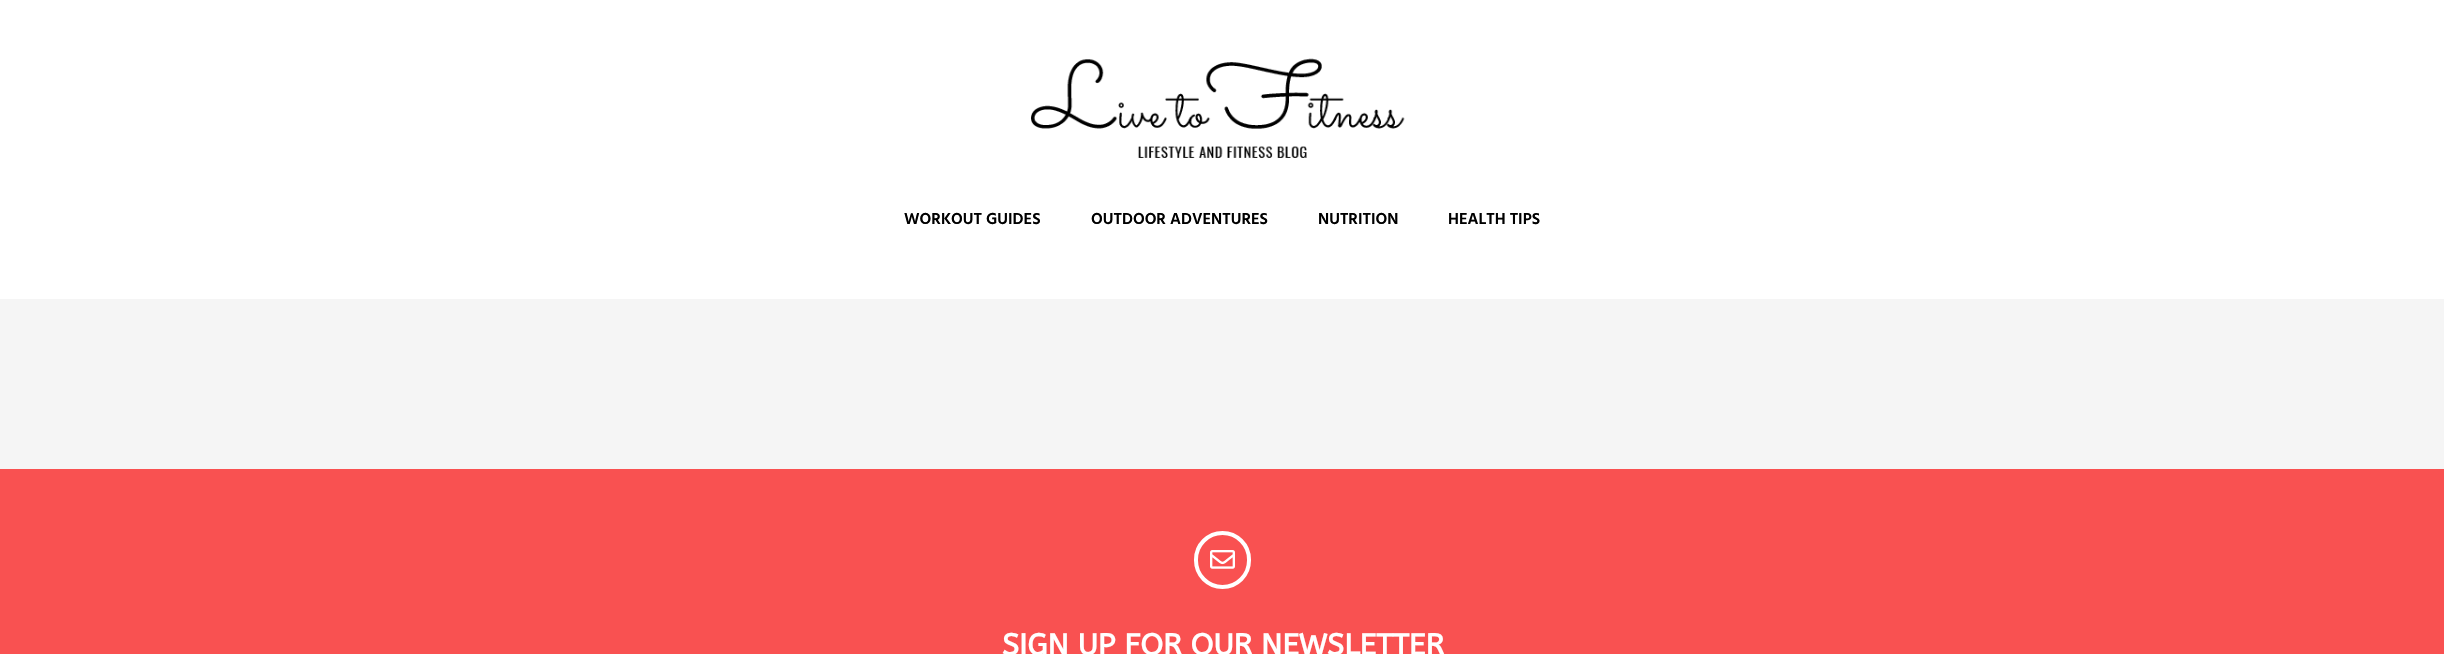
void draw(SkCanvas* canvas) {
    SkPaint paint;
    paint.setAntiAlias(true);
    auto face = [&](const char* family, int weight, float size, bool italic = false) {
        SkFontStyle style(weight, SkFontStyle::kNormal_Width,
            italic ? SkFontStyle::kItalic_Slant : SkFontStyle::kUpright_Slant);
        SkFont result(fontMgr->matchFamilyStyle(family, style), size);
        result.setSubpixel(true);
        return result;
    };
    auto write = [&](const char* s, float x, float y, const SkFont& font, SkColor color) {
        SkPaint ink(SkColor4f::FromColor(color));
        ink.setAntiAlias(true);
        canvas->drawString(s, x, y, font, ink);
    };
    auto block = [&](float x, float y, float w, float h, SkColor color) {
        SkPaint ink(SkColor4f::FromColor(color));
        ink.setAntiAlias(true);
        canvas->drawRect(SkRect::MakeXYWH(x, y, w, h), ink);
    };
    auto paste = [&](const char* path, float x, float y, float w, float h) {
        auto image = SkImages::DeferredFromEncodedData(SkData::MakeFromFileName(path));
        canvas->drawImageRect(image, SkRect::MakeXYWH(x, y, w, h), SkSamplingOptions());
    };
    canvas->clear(SkColorSetRGB(245, 245, 245));
    block(0, 0, 2444, 299, SK_ColorWHITE);
    paste("pic1.png", 1031, 58, 374, 100);
    auto kFont1 = face("Hind", 600, 16.25f);
    write("WORKOUT GUIDES", 904, 224, kFont1, SK_ColorBLACK);
    write("OUTDOOR ADVENTURES", 1091, 224, kFont1, SK_ColorBLACK);
    write("NUTRITION", 1318, 224, kFont1, SK_ColorBLACK);
    write("HEALTH TIPS", 1448, 224, kFont1, SK_ColorBLACK);
    block(0, 469, 2444, 185, SkColorSetRGB(249, 81, 81));
    paint.setStyle(SkPaint::kStroke_Style);
    paint.setStrokeWidth(4);
    paint.setColor(SK_ColorWHITE);
    canvas->drawRoundRect(SkRect::MakeXYWH(1196, 533, 53, 54), 26.5f, 26.5f, paint);
    paste("pic2.png", 1210, 550, 25, 19);
    auto kFont2 = face("ABeeZee", 700, 30);
    write("SIGN UP FOR OUR NEWSLETTER", 1002, 655, kFont2, SK_ColorWHITE);
}
